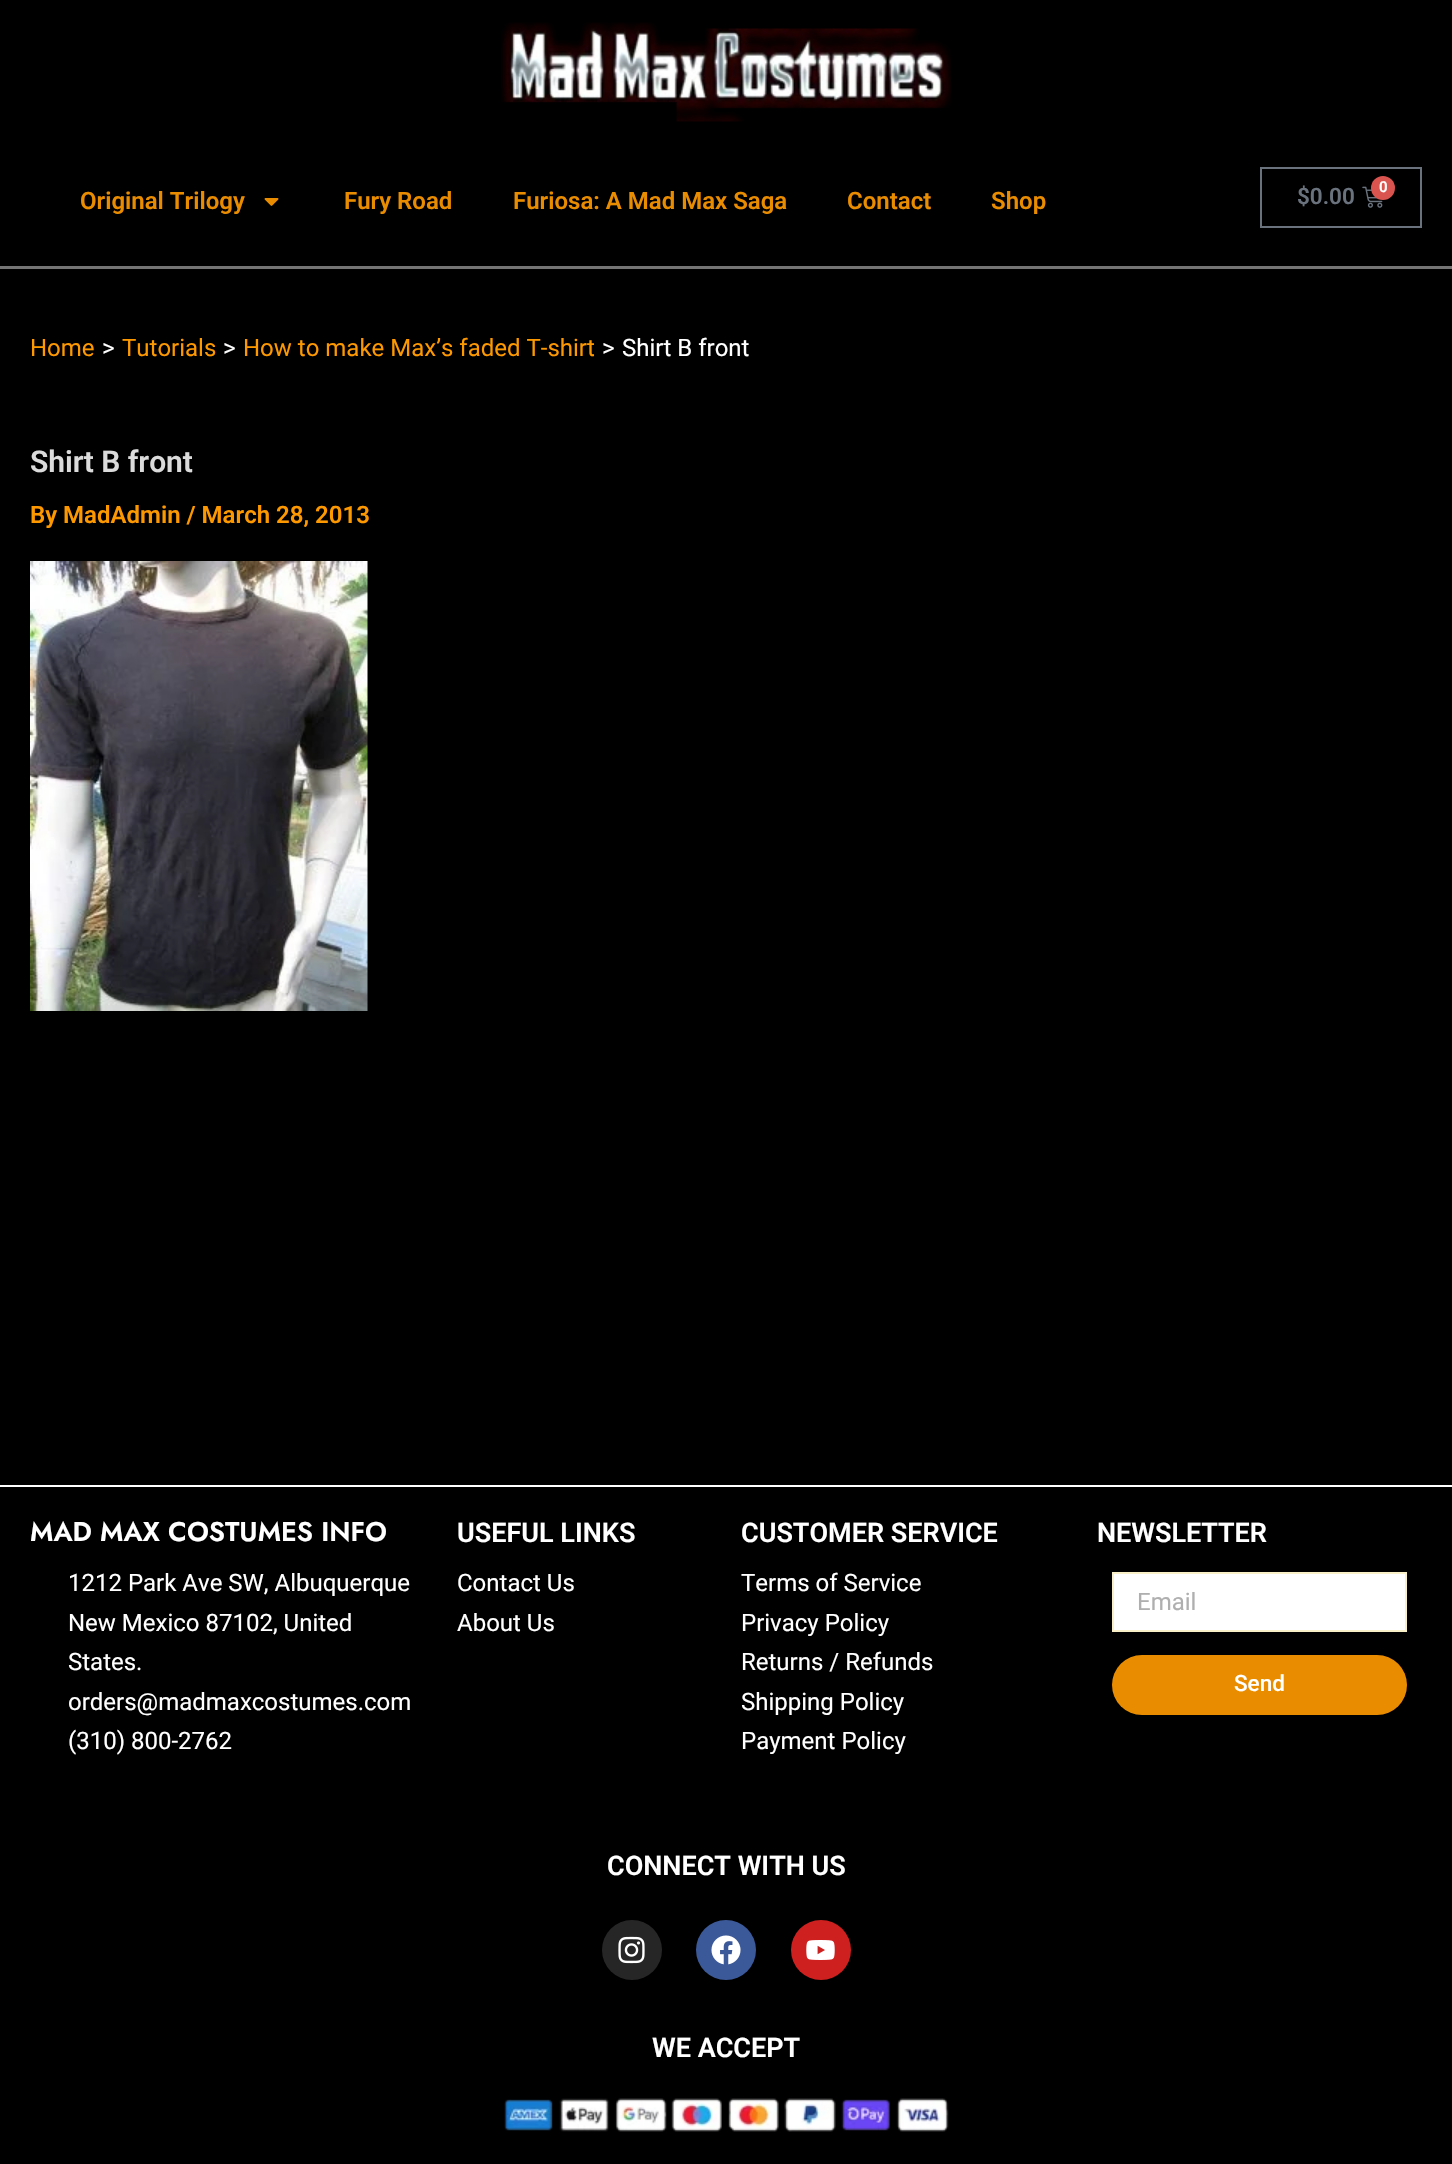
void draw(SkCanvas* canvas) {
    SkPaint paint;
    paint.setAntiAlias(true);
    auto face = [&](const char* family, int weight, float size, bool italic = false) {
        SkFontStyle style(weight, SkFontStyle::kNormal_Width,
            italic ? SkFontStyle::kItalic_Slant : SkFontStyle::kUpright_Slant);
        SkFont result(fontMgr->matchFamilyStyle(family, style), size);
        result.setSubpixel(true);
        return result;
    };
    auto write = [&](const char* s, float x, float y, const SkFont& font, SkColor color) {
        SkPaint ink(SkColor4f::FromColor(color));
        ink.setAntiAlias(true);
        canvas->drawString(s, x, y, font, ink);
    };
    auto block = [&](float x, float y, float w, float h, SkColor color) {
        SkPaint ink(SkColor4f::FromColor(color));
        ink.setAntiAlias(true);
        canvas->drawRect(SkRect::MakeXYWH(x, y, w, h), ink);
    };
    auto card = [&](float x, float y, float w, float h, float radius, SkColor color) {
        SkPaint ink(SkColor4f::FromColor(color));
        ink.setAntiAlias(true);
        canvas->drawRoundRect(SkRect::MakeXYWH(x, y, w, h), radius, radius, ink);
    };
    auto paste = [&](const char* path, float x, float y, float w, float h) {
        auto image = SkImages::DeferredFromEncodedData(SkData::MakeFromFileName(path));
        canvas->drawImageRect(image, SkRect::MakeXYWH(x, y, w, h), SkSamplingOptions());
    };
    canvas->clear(SK_ColorBLACK);
    paste("pic1.png", 501, 22, 450, 100);
    block(0, 266, 1452, 3, SkColorSetRGB(117, 116, 116));
    auto kFont1 = face("Roboto", 600, 24);
    write("Original Trilogy", 80, 209, kFont1, SkColorSetRGB(233, 140, 0));
    paste("pic2.png", 264, 198, 15, 8);
    write("Fury Road", 344, 209, kFont1, SkColorSetRGB(233, 140, 0));
    write("Furiosa: A Mad Max Saga", 513, 209, kFont1, SkColorSetRGB(233, 140, 0));
    write("Contact", 847, 209, kFont1, SkColorSetRGB(233, 140, 0));
    write("Shop", 991, 209, kFont1, SkColorSetRGB(233, 140, 0));
    paint.setStyle(SkPaint::kStroke_Style);
    paint.setStrokeWidth(2);
    paint.setColor(SkColorSetRGB(105, 114, 125));
    canvas->drawRect(SkRect::MakeXYWH(1261, 168, 160, 59), paint);
    auto kFont2 = face("Roboto", 600, 22.5f);
    write("$0.00", 1297, 204, kFont2, SkColorSetRGB(105, 114, 125));
    paste("pic3.png", 1362, 186, 21, 22);
    paint.setStyle(SkPaint::kFill_Style);
    paint.setColor(SkColorSetRGB(217, 83, 79));
    canvas->drawCircle(1383, 188, 12, paint);
    auto kFont3 = face("Roboto", 600, 15);
    write("0", 1379, 192, kFont3, SK_ColorWHITE);
    auto kFont4 = face("Roboto", 400, 24);
    write("Home", 30, 356, kFont4, SkColorSetRGB(253, 152, 0));
    write(">", 102, 356, kFont4, SK_ColorWHITE);
    write("Tutorials", 122, 356, kFont4, SkColorSetRGB(253, 152, 0));
    write(">", 223, 356, kFont4, SK_ColorWHITE);
    write("How to make Max’s faded T-shirt", 243, 356, kFont4, SkColorSetRGB(253, 152, 0));
    write(">", 602, 356, kFont4, SK_ColorWHITE);
    write("Shirt B front", 622, 356, kFont4, SK_ColorWHITE);
    auto kFont5 = face("Roboto", 600, 30);
    write("Shirt B front", 30, 472, kFont5, SkColorSetRGB(219, 219, 219));
    write("By MadAdmin / March 28, 2013", 30, 523, kFont1, SkColorSetRGB(253, 152, 0));
    paste("pic4.png", 30, 561, 338, 450);
    block(0, 1485, 1452, 2, SK_ColorWHITE);
    auto kFont6 = face("Jost", 600, 27);
    write("MAD MAX COSTUMES INFO", 30, 1541, kFont6, SK_ColorWHITE);
    write("1212 Park Ave SW, Albuquerque", 68, 1591, kFont4, SK_ColorWHITE);
    write("New Mexico 87102, United", 68, 1631, kFont4, SK_ColorWHITE);
    write("States.", 68, 1670, kFont4, SK_ColorWHITE);
    write("orders@madmaxcostumes.com", 68, 1710, kFont4, SK_ColorWHITE);
    write("(310) 800-2762", 68, 1749, kFont4, SK_ColorWHITE);
    auto kFont7 = face("Roboto", 600, 27);
    write("USEFUL LINKS", 457, 1542, kFont7, SK_ColorWHITE);
    write("Contact Us", 457, 1591, kFont4, SK_ColorWHITE);
    write("About Us", 457, 1631, kFont4, SK_ColorWHITE);
    write("CUSTOMER SERVICE", 741, 1542, kFont7, SK_ColorWHITE);
    write("Terms of Service", 741, 1591, kFont4, SK_ColorWHITE);
    write("Privacy Policy", 741, 1631, kFont4, SK_ColorWHITE);
    write("Returns / Refunds", 741, 1670, kFont4, SK_ColorWHITE);
    write("Shipping Policy", 741, 1710, kFont4, SK_ColorWHITE);
    write("Payment Policy", 741, 1749, kFont4, SK_ColorWHITE);
    write("NEWSLETTER", 1097, 1542, kFont7, SK_ColorWHITE);
    paint.setColor(SK_ColorWHITE);
    canvas->drawRect(SkRect::MakeXYWH(1113, 1573, 293, 58), paint);
    paint.setStyle(SkPaint::kStroke_Style);
    paint.setColor(SkColorSetRGB(249, 240, 200));
    canvas->drawRect(SkRect::MakeXYWH(1113, 1573, 293, 58), paint);
    write("Email", 1137, 1610, kFont4, SkColorSetRGB(175, 175, 175));
    card(1112, 1655, 295, 60, 30, SkColorSetRGB(233, 140, 0));
    auto kFont8 = face("Roboto", 500, 22.5f);
    write("Send", 1234, 1691, kFont8, SK_ColorWHITE);
    write("CONNECT WITH US", 607, 1875, kFont7, SK_ColorWHITE);
    paint.setStyle(SkPaint::kFill_Style);
    paint.setColor(SkColorSetRGB(38, 38, 38));
    canvas->drawCircle(632, 1950, 30, paint);
    paste("pic5.png", 618, 1936, 27, 28);
    paint.setColor(SkColorSetRGB(59, 89, 152));
    canvas->drawCircle(726, 1950, 30, paint);
    paste("pic6.png", 711, 1935, 30, 30);
    paint.setColor(SkColorSetRGB(205, 32, 31));
    canvas->drawCircle(821, 1950, 30, paint);
    paste("pic7.png", 806, 1940, 29, 20);
    write("WE ACCEPT", 652, 2057, kFont7, SK_ColorWHITE);
    paste("pic8.png", 504, 2098, 445, 34);
}
